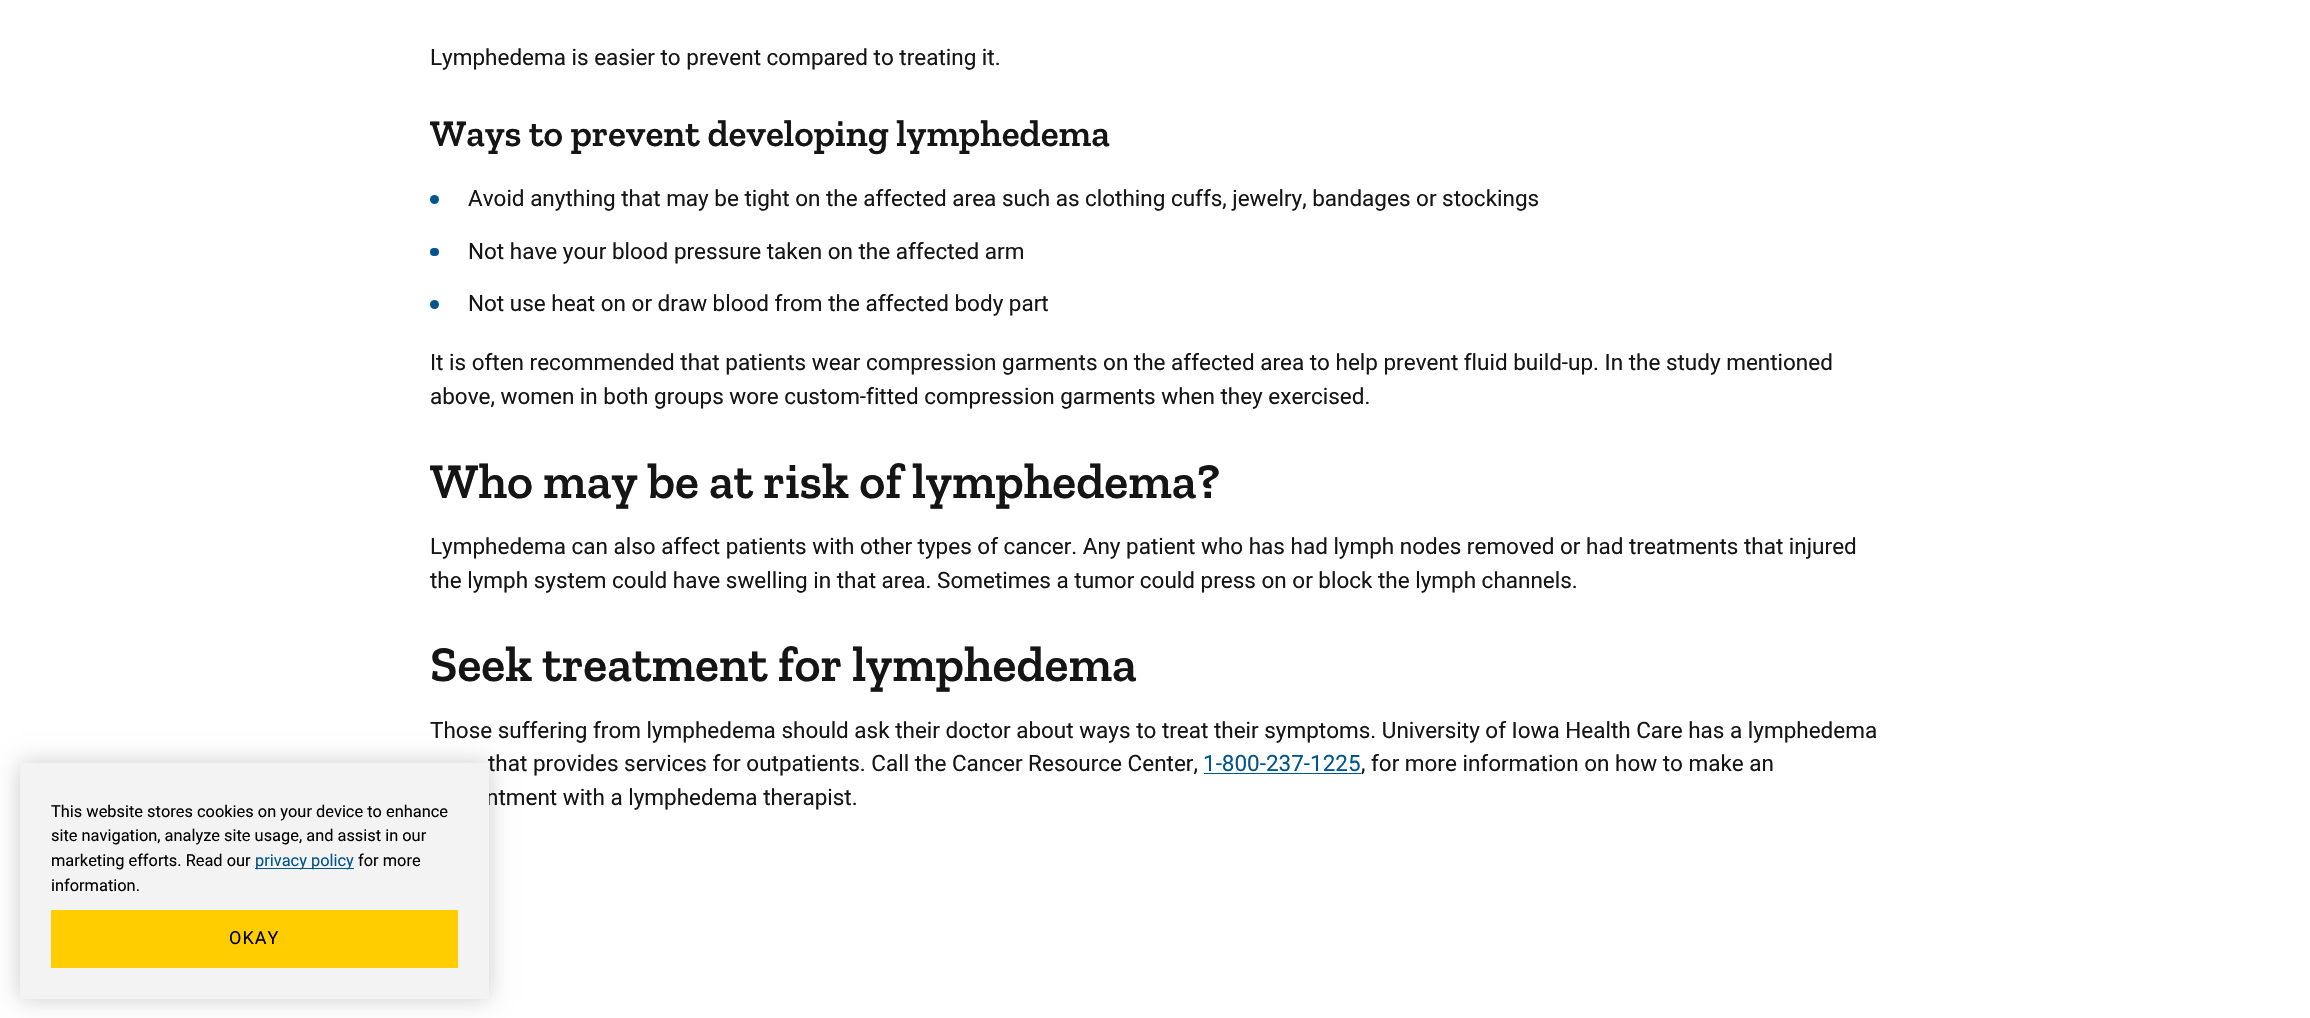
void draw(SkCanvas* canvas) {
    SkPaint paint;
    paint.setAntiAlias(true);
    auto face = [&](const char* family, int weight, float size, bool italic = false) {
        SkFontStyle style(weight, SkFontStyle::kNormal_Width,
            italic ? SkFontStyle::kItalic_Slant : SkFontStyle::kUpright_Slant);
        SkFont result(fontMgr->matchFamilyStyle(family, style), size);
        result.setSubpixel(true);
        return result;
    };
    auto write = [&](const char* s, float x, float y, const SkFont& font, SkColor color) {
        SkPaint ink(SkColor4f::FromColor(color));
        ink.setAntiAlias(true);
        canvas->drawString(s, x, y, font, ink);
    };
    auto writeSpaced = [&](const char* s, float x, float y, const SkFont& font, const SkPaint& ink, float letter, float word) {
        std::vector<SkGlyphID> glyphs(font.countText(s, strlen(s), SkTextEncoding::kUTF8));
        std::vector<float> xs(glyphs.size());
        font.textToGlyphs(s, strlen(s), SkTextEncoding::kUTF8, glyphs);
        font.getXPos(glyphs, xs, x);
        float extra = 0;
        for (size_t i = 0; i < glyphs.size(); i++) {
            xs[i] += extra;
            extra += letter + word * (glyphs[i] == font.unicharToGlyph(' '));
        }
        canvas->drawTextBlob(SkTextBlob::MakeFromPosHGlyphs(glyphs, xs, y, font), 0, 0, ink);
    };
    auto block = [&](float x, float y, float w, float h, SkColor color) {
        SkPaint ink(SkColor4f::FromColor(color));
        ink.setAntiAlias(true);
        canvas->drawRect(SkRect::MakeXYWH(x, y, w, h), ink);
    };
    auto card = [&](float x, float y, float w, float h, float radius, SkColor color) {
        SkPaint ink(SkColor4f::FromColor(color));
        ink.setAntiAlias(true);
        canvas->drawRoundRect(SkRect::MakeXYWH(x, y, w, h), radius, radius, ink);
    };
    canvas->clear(SK_ColorWHITE);
    auto kFont1 = face("Roboto", 400, 22.5f);
    write("Lymphedema is easier to prevent compared to treating it.", 430, 65, kFont1, SkColorSetRGB(21, 21, 21));
    auto kFont2 = face("Zilla Slab", 600, 37.5f);
    write("Ways to prevent developing lymphedema", 430, 146, kFont2, SkColorSetRGB(21, 21, 21));
    paint.setColor(SkColorSetRGB(0, 85, 140));
    canvas->drawCircle(434.5f, 199.5f, 4.5f, paint);
    write("Avoid anything that may be tight on the affected area such as clothing cuffs, jewelry, bandages or stockings", 468, 206, kFont1, SkColorSetRGB(21, 21, 21));
    card(430, 248, 9, 8, 4, SkColorSetRGB(0, 85, 140));
    write("Not have your blood pressure taken on the affected arm", 468, 259, kFont1, SkColorSetRGB(21, 21, 21));
    canvas->drawCircle(434.5f, 304.5f, 4.5f, paint);
    write("Not use heat on or draw blood from the affected body part", 468, 311, kFont1, SkColorSetRGB(21, 21, 21));
    write("It is often recommended that patients wear compression garments on the affected area to help prevent fluid build-up. In the study mentioned", 430, 370, kFont1, SkColorSetRGB(21, 21, 21));
    write("above, women in both groups wore custom-fitted compression garments when they exercised.", 430, 404, kFont1, SkColorSetRGB(21, 21, 21));
    auto kFont3 = face("Zilla Slab", 600, 50);
    write("Who may be at risk of lymphedema?", 430, 498, kFont3, SkColorSetRGB(21, 21, 21));
    write("Lymphedema can also affect patients with other types of cancer. Any patient who has had lymph nodes removed or had treatments that injured", 430, 554, kFont1, SkColorSetRGB(21, 21, 21));
    write("the lymph system could have swelling in that area. Sometimes a tumor could press on or block the lymph channels.", 430, 588, kFont1, SkColorSetRGB(21, 21, 21));
    write("Seek treatment for lymphedema", 430, 681, kFont3, SkColorSetRGB(21, 21, 21));
    write("Those suffering from lymphedema should ask their doctor about ways to treat their symptoms. University of Iowa Health Care has a lymphedema", 430, 738, kFont1, SkColorSetRGB(21, 21, 21));
    write("that provides services for outpatients. Call the Cancer Resource Center,", 488, 771, kFont1, SkColorSetRGB(21, 21, 21));
    write("1-800-237-1225", 1203, 771, kFont1, SkColorSetRGB(0, 85, 140));
    block(1204, 773, 157, 1, SkColorSetRGB(0, 85, 140));
    write(", for more information on how to make an", 1361, 771, kFont1, SkColorSetRGB(21, 21, 21));
    write("ntment with a lymphedema therapist.", 486, 805, kFont1, SkColorSetRGB(21, 21, 21));
    paint.setColor(SkColorSetARGB(51, 0, 0, 0));
    paint.setMaskFilter(SkMaskFilter::MakeBlur(kNormal_SkBlurStyle, 11));
    canvas->drawRect(SkRect::MakeXYWH(20, 763, 469, 236), paint);
    paint.setMaskFilter(nullptr);
    block(20, 763, 469, 236, SkColorSetRGB(243, 243, 243));
    auto kFont4 = face("Roboto", 400, 16.4f);
    write("This website stores cookies on your device to enhance", 51, 817, kFont4, SK_ColorBLACK);
    write("site navigation, analyze site usage, and assist in our", 51, 841, kFont4, SK_ColorBLACK);
    write("marketing efforts. Read our", 51, 866, kFont4, SK_ColorBLACK);
    block(255, 868, 99, 1, SkColorSetRGB(0, 85, 140));
    write("privacy policy", 255, 866, kFont4, SkColorSetRGB(0, 85, 140));
    write("for more", 358, 866, kFont4, SK_ColorBLACK);
    write("information.", 51, 891, kFont4, SK_ColorBLACK);
    block(51, 910, 407, 58, SkColorSetRGB(255, 205, 0));
    auto kFont5 = face("Roboto", 400, 18);
    paint.setColor(SK_ColorBLACK);
    writeSpaced("OKAY", 229, 944, kFont5, paint, 1, 0);
}
